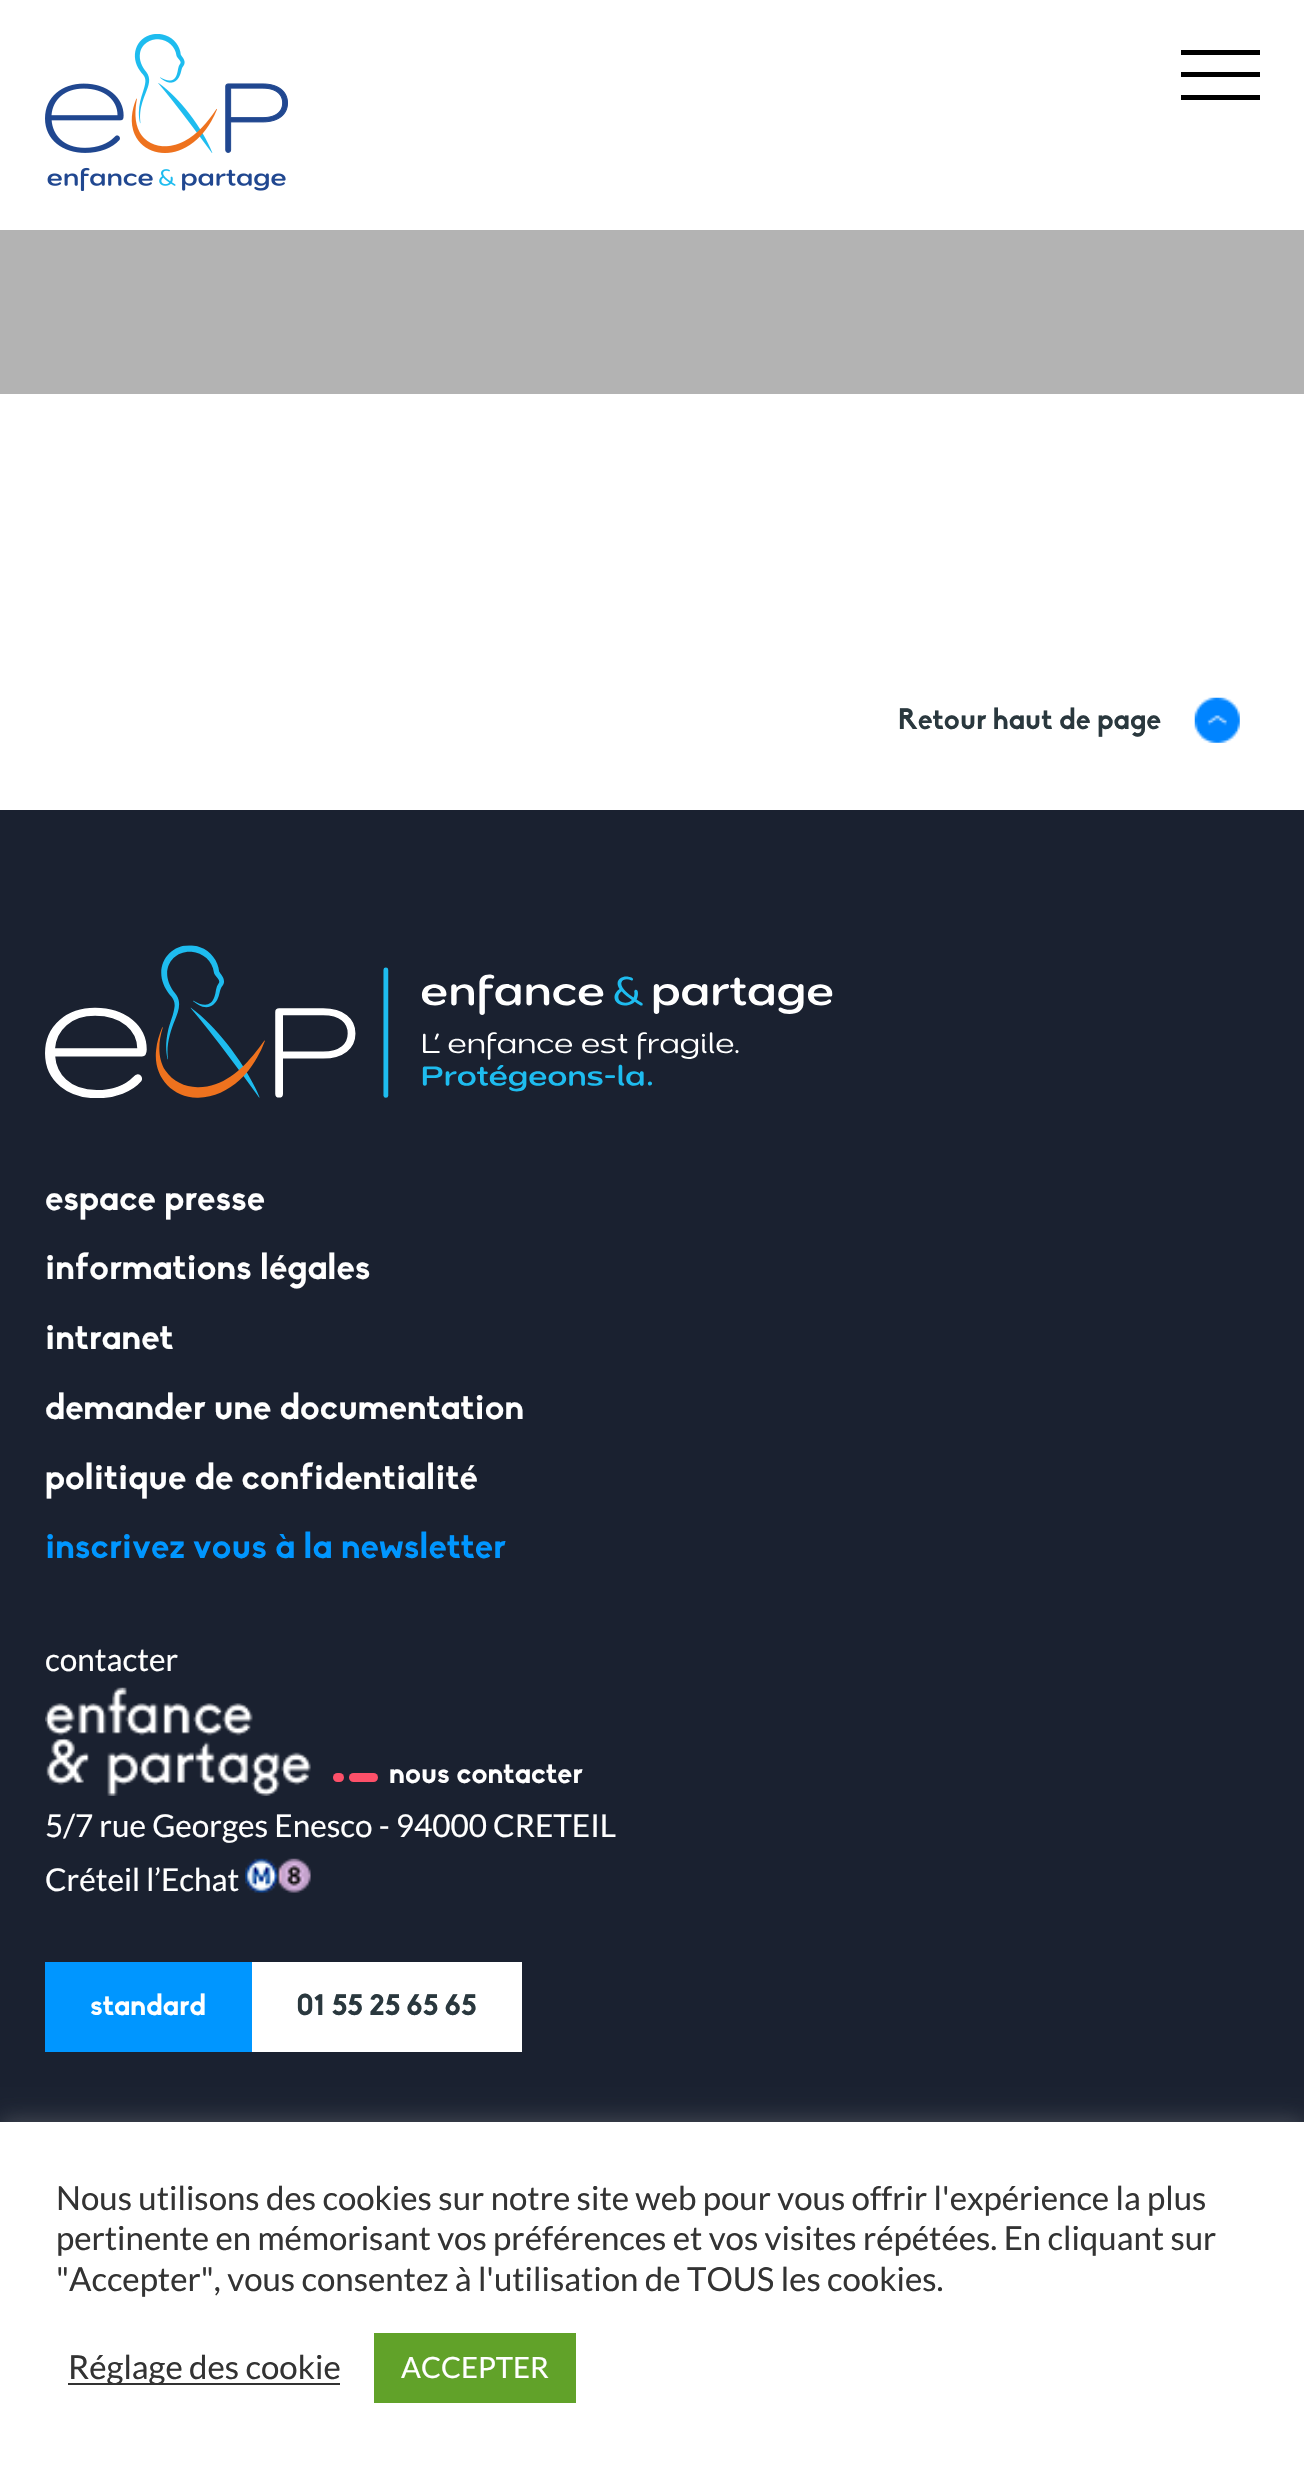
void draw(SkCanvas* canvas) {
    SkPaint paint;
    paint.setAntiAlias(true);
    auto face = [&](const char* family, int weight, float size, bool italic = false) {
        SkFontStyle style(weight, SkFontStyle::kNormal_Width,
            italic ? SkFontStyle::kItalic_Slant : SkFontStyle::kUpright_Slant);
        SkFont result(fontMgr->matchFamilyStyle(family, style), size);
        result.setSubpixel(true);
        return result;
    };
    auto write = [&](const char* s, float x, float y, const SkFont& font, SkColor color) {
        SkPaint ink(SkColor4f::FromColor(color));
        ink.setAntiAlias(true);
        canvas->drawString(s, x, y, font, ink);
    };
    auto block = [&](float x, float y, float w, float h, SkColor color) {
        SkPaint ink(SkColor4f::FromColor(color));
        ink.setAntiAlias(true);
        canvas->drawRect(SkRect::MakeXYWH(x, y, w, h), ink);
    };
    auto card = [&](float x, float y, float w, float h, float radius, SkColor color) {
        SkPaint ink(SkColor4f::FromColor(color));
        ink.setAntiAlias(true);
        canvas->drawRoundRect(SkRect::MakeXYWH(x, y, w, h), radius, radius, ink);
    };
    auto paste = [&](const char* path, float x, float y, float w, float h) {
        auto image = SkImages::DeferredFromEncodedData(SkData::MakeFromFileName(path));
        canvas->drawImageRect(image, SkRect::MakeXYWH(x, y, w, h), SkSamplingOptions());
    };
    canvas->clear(SK_ColorWHITE);
    paste("pic1.png", 45, 34, 243, 157);
    block(1181, 50, 79, 5, SK_ColorBLACK);
    block(1181, 72, 79, 5, SK_ColorBLACK);
    block(1181, 95, 79, 5, SK_ColorBLACK);
    block(0, 230, 1304, 164, SkColorSetRGB(179, 179, 179));
    auto kFont1 = face("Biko", 700, 29.25f);
    write("Retour haut de page", 898, 729, kFont1, SkColorSetRGB(42, 56, 62));
    paste("pic2.png", 1194, 697, 46, 46);
    block(0, 810, 1304, 1312, SkColorSetRGB(26, 33, 48));
    paste("pic3.png", 45, 945, 788, 153);
    auto kFont2 = face("Biko", 700, 36);
    write("espace presse", 45, 1210, kFont2, SK_ColorWHITE);
    write("informations légales", 45, 1279, kFont2, SK_ColorWHITE);
    write("intranet", 45, 1349, kFont2, SK_ColorWHITE);
    write("demander une documentation", 45, 1419, kFont2, SK_ColorWHITE);
    write("politique de confidentialité", 45, 1489, kFont2, SK_ColorWHITE);
    write("inscrivez vous à la newsletter", 45, 1558, kFont2, SkColorSetRGB(0, 150, 255));
    auto kFont3 = face("Lato", 400, 31.5f);
    write("contacter", 45, 1671, kFont3, SK_ColorWHITE);
    paste("pic4.png", 45, 1687, 266, 109);
    card(333, 1773, 11, 9, 4.5f, SkColorSetRGB(253, 80, 105));
    card(349, 1773, 29, 9, 4.5f, SkColorSetRGB(253, 80, 105));
    write("nous contacter", 389, 1783, kFont1, SK_ColorWHITE);
    write("5/7 rue Georges Enesco - 94000 CRETEIL", 45, 1837, kFont3, SK_ColorWHITE);
    write("Créteil l’Echat", 45, 1891, kFont3, SK_ColorWHITE);
    paste("pic5.png", 245, 1858, 66, 35);
    block(45, 1962, 207, 90, SkColorSetRGB(0, 150, 255));
    write("standard", 90, 2015, kFont1, SK_ColorWHITE);
    block(252, 1962, 270, 90, SK_ColorWHITE);
    write("01 55 25 65 65", 296, 2015, kFont1, SkColorSetRGB(42, 56, 62));
    paint.setColor(SkColorSetARGB(77, 172, 171, 171));
    paint.setMaskFilter(SkMaskFilter::MakeBlur(kNormal_SkBlurStyle, 11));
    canvas->drawRect(SkRect::MakeXYWH(0, 2120, 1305, 348), paint);
    paint.setMaskFilter(nullptr);
    block(0, 2122, 1304, 348, SK_ColorWHITE);
    auto kFont4 = face("Lato", 400, 33);
    write("Nous utilisons des cookies sur notre site web pour vous offrir l'expérience la plus", 56, 2210, kFont4, SkColorSetRGB(51, 51, 51));
    write("pertinente en mémorisant vos préférences et vos visites répétées. En cliquant sur", 56, 2250, kFont4, SkColorSetRGB(51, 51, 51));
    write("\"Accepter\", vous consentez à l'utilisation de TOUS les cookies.", 56, 2291, kFont4, SkColorSetRGB(51, 51, 51));
    block(68, 2383, 272, 2, SkColorSetRGB(51, 51, 51));
    write("Réglage des cookie", 68, 2379, kFont4, SkColorSetRGB(51, 51, 51));
    block(374, 2333, 202, 70, SkColorSetRGB(97, 162, 41));
    auto kFont5 = face("Lato", 400, 29.25f);
    write("ACCEPTER", 401, 2378, kFont5, SK_ColorWHITE);
}
